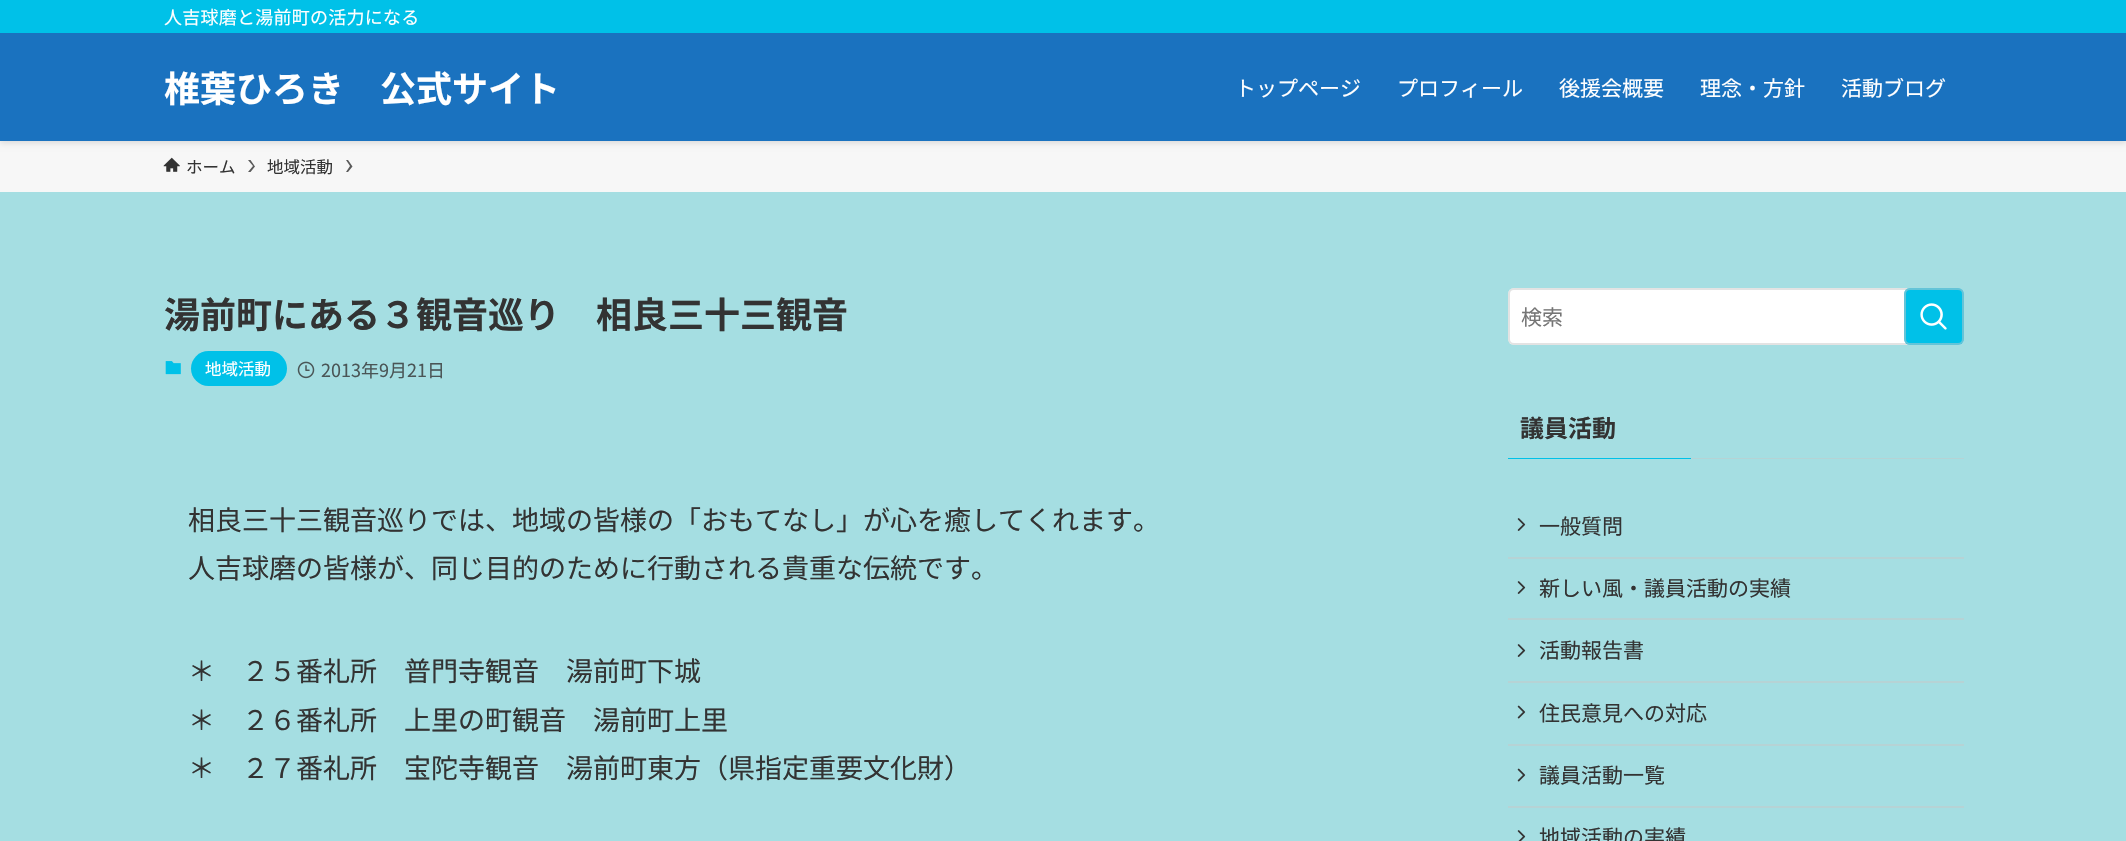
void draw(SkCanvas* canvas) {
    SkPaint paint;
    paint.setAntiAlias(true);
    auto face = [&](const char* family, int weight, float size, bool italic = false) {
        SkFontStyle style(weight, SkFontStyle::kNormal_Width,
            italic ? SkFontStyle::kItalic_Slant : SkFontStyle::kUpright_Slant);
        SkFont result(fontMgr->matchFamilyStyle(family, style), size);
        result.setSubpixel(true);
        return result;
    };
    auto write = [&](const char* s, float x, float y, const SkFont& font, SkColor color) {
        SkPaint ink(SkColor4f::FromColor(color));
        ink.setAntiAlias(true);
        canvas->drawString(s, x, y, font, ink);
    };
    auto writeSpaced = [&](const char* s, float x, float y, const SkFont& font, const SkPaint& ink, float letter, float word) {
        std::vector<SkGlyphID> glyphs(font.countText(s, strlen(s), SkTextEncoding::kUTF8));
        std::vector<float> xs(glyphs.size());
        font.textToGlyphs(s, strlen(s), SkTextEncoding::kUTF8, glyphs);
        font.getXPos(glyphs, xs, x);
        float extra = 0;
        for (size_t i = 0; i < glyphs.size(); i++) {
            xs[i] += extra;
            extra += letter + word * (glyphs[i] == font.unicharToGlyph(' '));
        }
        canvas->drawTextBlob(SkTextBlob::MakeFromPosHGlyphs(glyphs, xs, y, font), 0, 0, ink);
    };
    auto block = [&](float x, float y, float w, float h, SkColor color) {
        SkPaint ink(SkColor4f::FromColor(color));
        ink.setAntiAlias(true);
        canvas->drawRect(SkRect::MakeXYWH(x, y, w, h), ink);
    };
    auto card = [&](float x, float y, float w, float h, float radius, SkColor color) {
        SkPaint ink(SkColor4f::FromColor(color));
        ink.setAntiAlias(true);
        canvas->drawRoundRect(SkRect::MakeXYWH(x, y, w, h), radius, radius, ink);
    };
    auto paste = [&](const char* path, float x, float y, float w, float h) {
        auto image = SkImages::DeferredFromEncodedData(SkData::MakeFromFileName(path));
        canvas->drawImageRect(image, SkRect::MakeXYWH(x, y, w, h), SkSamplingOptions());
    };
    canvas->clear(SkColorSetRGB(165, 222, 226));
    block(0, 141, 2126, 51, SkColorSetRGB(247, 247, 247));
    paint.setColor(SkColorSetARGB(31, 0, 0, 0));
    paint.setMaskFilter(SkMaskFilter::MakeBlur(kNormal_SkBlurStyle, 3));
    canvas->drawRect(SkRect::MakeXYWH(0, 2, 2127, 141), paint);
    paint.setMaskFilter(nullptr);
    block(0, 33, 2126, 108, SkColorSetRGB(26, 114, 191));
    block(0, 0, 2126, 33, SkColorSetRGB(0, 193, 232));
    auto kFont1 = face("Noto Sans JP", 400, 18);
    paint.setColor(SK_ColorWHITE);
    writeSpaced("人吉球磨と湯前町の活力になる", 164, 24, kFont1, paint, 0.25f, 0);
    auto kFont2 = face("Noto Sans JP", 700, 36);
    write("椎葉ひろき　公式サイト", 164, 102, kFont2, SK_ColorWHITE);
    auto kFont3 = face("Noto Sans JP", 400, 21);
    write("トップページ", 1235, 96, kFont3, SK_ColorWHITE);
    write("プロフィール", 1397, 96, kFont3, SK_ColorWHITE);
    write("後援会概要", 1559, 96, kFont3, SK_ColorWHITE);
    write("理念・方針", 1700, 96, kFont3, SK_ColorWHITE);
    write("活動ブログ", 1841, 96, kFont3, SK_ColorWHITE);
    paste("pic1.png", 163, 157, 17, 15);
    auto kFont4 = face("Noto Sans JP", 400, 16.5f);
    write("ホーム", 186, 173, kFont4, SkColorSetRGB(51, 51, 51));
    paint.setColor(SkColorSetRGB(90, 90, 90));
    canvas->drawPath(SkPathBuilder().moveTo(250.5f, 160).lineTo(248, 160).lineTo(253, 166).lineTo(248, 172).lineTo(250.5f, 172).lineTo(255, 166.5f).close().detach(), paint);
    write("地域活動", 267, 173, kFont4, SkColorSetRGB(51, 51, 51));
    canvas->drawPath(SkPathBuilder().moveTo(348, 160).lineTo(346, 160).lineTo(350, 166).lineTo(346, 172).lineTo(348, 172).lineTo(352.5f, 166.5f).close().detach(), paint);
    write("湯前町にある３観音巡り　相良三十三観音", 164, 328, kFont2, SkColorSetRGB(51, 51, 51));
    paste("pic2.png", 165, 361, 16, 14);
    card(191, 351, 96, 35, 17.5f, SkColorSetRGB(0, 193, 232));
    write("地域活動", 205, 375, kFont4, SK_ColorWHITE);
    paste("pic3.png", 297, 361, 18, 18);
    write("2013年9月21日", 321, 377, kFont1, SkColorSetRGB(74, 85, 86));
    auto kFont5 = face("Noto Sans JP", 400, 27);
    write("相良三十三観音巡りでは、地域の皆様の「おもてなし」が心を癒してくれます。", 188, 530, kFont5, SkColorSetRGB(51, 51, 51));
    write("人吉球磨の皆様が、同じ目的のために行動される貴重な伝統です。", 188, 578, kFont5, SkColorSetRGB(51, 51, 51));
    write("＊　２５番礼所　普門寺観音　湯前町下城", 188, 681, kFont5, SkColorSetRGB(51, 51, 51));
    write("＊　２６番礼所　上里の町観音　湯前町上里", 188, 730, kFont5, SkColorSetRGB(51, 51, 51));
    write("＊　２７番礼所　宝陀寺観音　湯前町東方（県指定重要文化財）", 188, 778, kFont5, SkColorSetRGB(51, 51, 51));
    card(1508, 288, 456, 57, 6, SK_ColorWHITE);
    paint.setStyle(SkPaint::kStroke_Style);
    paint.setStrokeWidth(2);
    paint.setColor(SkColorSetARGB(128, 199, 199, 199));
    canvas->drawRoundRect(SkRect::MakeXYWH(1509, 289, 454, 55), 5, 5, paint);
    write("検索", 1521, 325, kFont3, SkColorSetRGB(117, 117, 117));
    card(1904, 288, 60, 57, 6, SkColorSetRGB(0, 193, 232));
    canvas->drawRoundRect(SkRect::MakeXYWH(1905, 289, 58, 55), 5, 5, paint);
    paste("pic4.png", 1920, 303, 27, 27);
    auto kFont6 = face("Noto Sans JP", 700, 24);
    write("議員活動", 1520, 437, kFont6, SkColorSetRGB(51, 51, 51));
    block(1508, 458, 183, 1, SkColorSetRGB(0, 193, 232));
    block(1691, 458, 273, 1, SkColorSetRGB(182, 211, 213));
    block(1508, 557, 456, 2, SkColorSetRGB(182, 211, 213));
    paste("pic5.png", 1517, 518, 9, 13);
    write("一般質問", 1539, 534, kFont3, SkColorSetRGB(51, 51, 51));
    block(1508, 618, 456, 2, SkColorSetRGB(182, 211, 213));
    paste("pic5.png", 1517, 581, 9, 13);
    write("新しい風・議員活動の実績", 1539, 596, kFont3, SkColorSetRGB(51, 51, 51));
    block(1508, 681, 456, 2, SkColorSetRGB(182, 211, 213));
    paste("pic5.png", 1517, 644, 9, 13);
    write("活動報告書", 1539, 658, kFont3, SkColorSetRGB(51, 51, 51));
    block(1508, 744, 456, 2, SkColorSetRGB(182, 211, 213));
    paste("pic6.png", 1517, 705, 9, 14);
    write("住民意見への対応", 1539, 721, kFont3, SkColorSetRGB(51, 51, 51));
    block(1508, 806, 456, 2, SkColorSetRGB(182, 211, 213));
    paste("pic6.png", 1517, 768, 9, 14);
    write("議員活動一覧", 1539, 783, kFont3, SkColorSetRGB(51, 51, 51));
    paste("pic7.png", 1517, 830, 9, 11);
    write("地域活動の実績", 1539, 845, kFont3, SkColorSetRGB(51, 51, 51));
}
